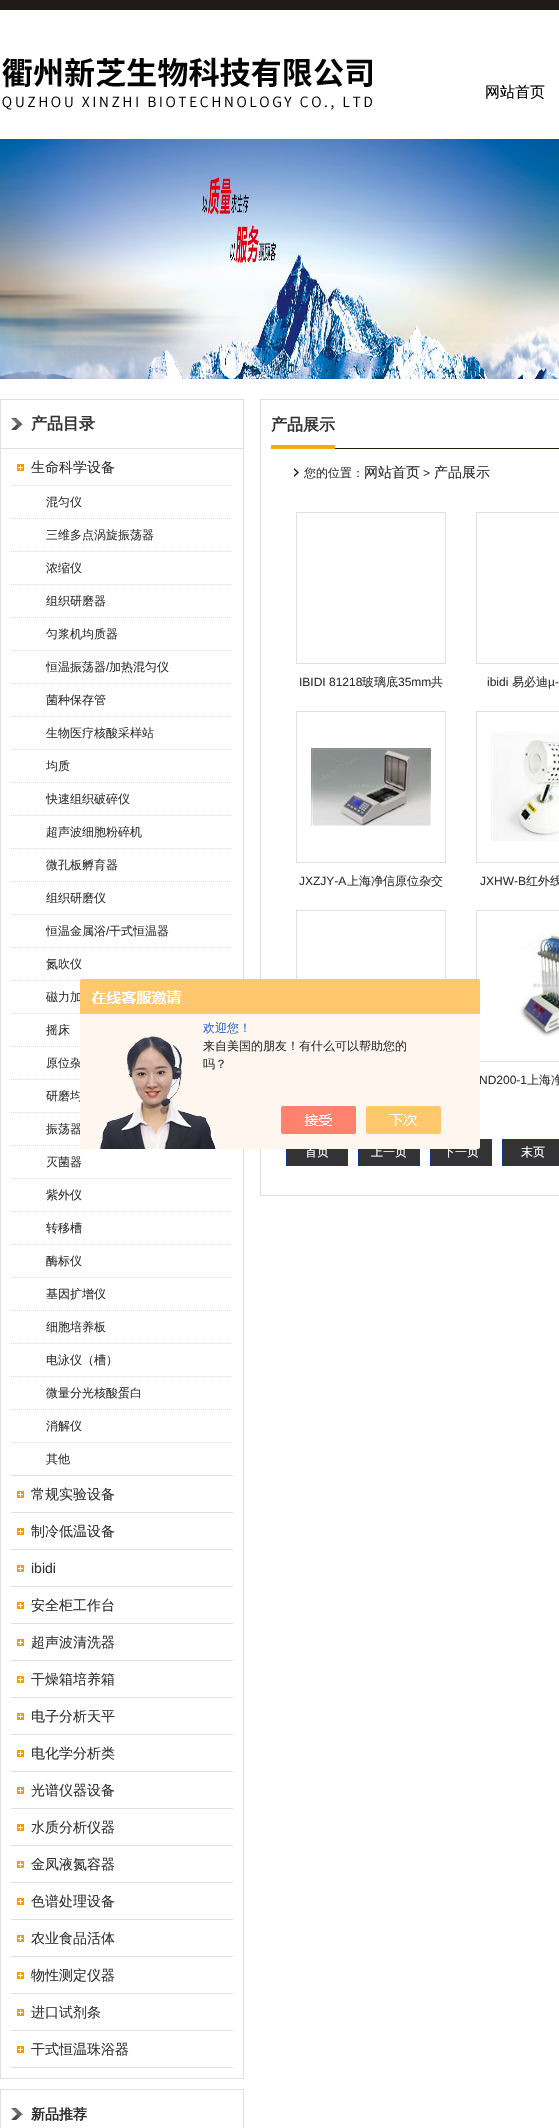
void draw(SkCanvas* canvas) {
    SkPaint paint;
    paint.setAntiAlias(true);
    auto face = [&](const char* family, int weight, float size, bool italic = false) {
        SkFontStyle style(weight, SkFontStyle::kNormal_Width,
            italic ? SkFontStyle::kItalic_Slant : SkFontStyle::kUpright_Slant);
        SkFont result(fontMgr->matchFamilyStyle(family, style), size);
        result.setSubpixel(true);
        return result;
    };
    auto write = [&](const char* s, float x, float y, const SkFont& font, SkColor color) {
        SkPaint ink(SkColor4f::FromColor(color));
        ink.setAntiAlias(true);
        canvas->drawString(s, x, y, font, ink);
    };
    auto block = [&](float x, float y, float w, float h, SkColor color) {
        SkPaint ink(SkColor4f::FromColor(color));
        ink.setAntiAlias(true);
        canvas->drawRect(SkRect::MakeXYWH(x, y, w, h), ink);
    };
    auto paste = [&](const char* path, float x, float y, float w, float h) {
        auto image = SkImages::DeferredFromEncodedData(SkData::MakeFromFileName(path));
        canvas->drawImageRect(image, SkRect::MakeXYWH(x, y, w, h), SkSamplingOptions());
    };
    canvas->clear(SK_ColorWHITE);
    block(0, 0, 559, 10, SkColorSetRGB(31, 26, 23));
    paste("pic1.png", 2, 57, 370, 53);
    auto kFont1 = face("WenQuanYi Zen Hei", 500, 15);
    write("网站首页", 485, 97, kFont1, SkColorSetRGB(1, 1, 1));
    paste("pic2.png", 0, 139, 559, 240);
    paint.setStyle(SkPaint::kStroke_Style);
    paint.setStrokeWidth(1);
    paint.setColor(SkColorSetRGB(223, 223, 223));
    canvas->drawRect(SkRect::MakeXYWH(0.5f, 399.5f, 243, 1679), paint);
    paste("pic3.png", 11, 418, 12, 12);
    auto kFont2 = face("WenQuanYi Zen Hei", 700, 16);
    write("产品目录", 31, 429, kFont2, SkColorSetRGB(52, 52, 52));
    block(1, 448, 242, 1, SkColorSetRGB(223, 223, 223));
    block(11, 1475, 222, 1, SkColorSetRGB(223, 223, 223));
    paste("pic4.png", 17, 464, 7, 7);
    auto kFont3 = face("WenQuanYi Zen Hei", 500, 14);
    write("生命科学设备", 31, 472, kFont3, SkColorSetRGB(52, 52, 52));
    paint.setPathEffect(SkDashPathEffect::Make({{1, 1}}, 0));
    canvas->drawPath(SkPathBuilder().moveTo(11, 485.5f).lineTo(233, 485.5f).detach(), paint);
    paint.setPathEffect(nullptr);
    auto kFont4 = face("WenQuanYi Zen Hei", 500, 12);
    write("混匀仪", 46, 506, kFont4, SkColorSetRGB(52, 52, 52));
    paint.setPathEffect(SkDashPathEffect::Make({{1, 1}}, 0));
    canvas->drawPath(SkPathBuilder().moveTo(11, 518.5f).lineTo(233, 518.5f).detach(), paint);
    paint.setPathEffect(nullptr);
    write("三维多点涡旋振荡器", 46, 539, kFont4, SkColorSetRGB(52, 52, 52));
    paint.setPathEffect(SkDashPathEffect::Make({{1, 1}}, 0));
    canvas->drawPath(SkPathBuilder().moveTo(11, 551.5f).lineTo(233, 551.5f).detach(), paint);
    paint.setPathEffect(nullptr);
    write("浓缩仪", 46, 572, kFont4, SkColorSetRGB(52, 52, 52));
    paint.setPathEffect(SkDashPathEffect::Make({{1, 1}}, 0));
    canvas->drawPath(SkPathBuilder().moveTo(11, 584.5f).lineTo(233, 584.5f).detach(), paint);
    paint.setPathEffect(nullptr);
    write("组织研磨器", 46, 605, kFont4, SkColorSetRGB(52, 52, 52));
    paint.setPathEffect(SkDashPathEffect::Make({{1, 1}}, 0));
    canvas->drawPath(SkPathBuilder().moveTo(11, 617.5f).lineTo(233, 617.5f).detach(), paint);
    paint.setPathEffect(nullptr);
    write("匀浆机均质器", 46, 638, kFont4, SkColorSetRGB(52, 52, 52));
    paint.setPathEffect(SkDashPathEffect::Make({{1, 1}}, 0));
    canvas->drawPath(SkPathBuilder().moveTo(11, 650.5f).lineTo(233, 650.5f).detach(), paint);
    paint.setPathEffect(nullptr);
    write("恒温振荡器", 46, 671, kFont4, SkColorSetRGB(52, 52, 52));
    auto kFont5 = face("Liberation Sans", 400, 12);
    write("/", 106, 671, kFont5, SkColorSetRGB(52, 52, 52));
    write("加热混匀仪", 109, 671, kFont4, SkColorSetRGB(52, 52, 52));
    paint.setPathEffect(SkDashPathEffect::Make({{1, 1}}, 0));
    canvas->drawPath(SkPathBuilder().moveTo(11, 683.5f).lineTo(233, 683.5f).detach(), paint);
    paint.setPathEffect(nullptr);
    write("菌种保存管", 46, 704, kFont4, SkColorSetRGB(52, 52, 52));
    paint.setPathEffect(SkDashPathEffect::Make({{1, 1}}, 0));
    canvas->drawPath(SkPathBuilder().moveTo(11, 716.5f).lineTo(233, 716.5f).detach(), paint);
    paint.setPathEffect(nullptr);
    write("生物医疗核酸采样站", 46, 737, kFont4, SkColorSetRGB(52, 52, 52));
    paint.setPathEffect(SkDashPathEffect::Make({{1, 1}}, 0));
    canvas->drawPath(SkPathBuilder().moveTo(11, 749.5f).lineTo(233, 749.5f).detach(), paint);
    paint.setPathEffect(nullptr);
    write("均质", 46, 770, kFont4, SkColorSetRGB(52, 52, 52));
    paint.setPathEffect(SkDashPathEffect::Make({{1, 1}}, 0));
    canvas->drawPath(SkPathBuilder().moveTo(11, 782.5f).lineTo(233, 782.5f).detach(), paint);
    paint.setPathEffect(nullptr);
    write("快速组织破碎仪", 46, 803, kFont4, SkColorSetRGB(52, 52, 52));
    paint.setPathEffect(SkDashPathEffect::Make({{1, 1}}, 0));
    canvas->drawPath(SkPathBuilder().moveTo(11, 815.5f).lineTo(233, 815.5f).detach(), paint);
    paint.setPathEffect(nullptr);
    write("超声波细胞粉碎机", 46, 836, kFont4, SkColorSetRGB(52, 52, 52));
    paint.setPathEffect(SkDashPathEffect::Make({{1, 1}}, 0));
    canvas->drawPath(SkPathBuilder().moveTo(11, 848.5f).lineTo(233, 848.5f).detach(), paint);
    paint.setPathEffect(nullptr);
    write("微孔板孵育器", 46, 869, kFont4, SkColorSetRGB(52, 52, 52));
    paint.setPathEffect(SkDashPathEffect::Make({{1, 1}}, 0));
    canvas->drawPath(SkPathBuilder().moveTo(11, 881.5f).lineTo(233, 881.5f).detach(), paint);
    paint.setPathEffect(nullptr);
    write("组织研磨仪", 46, 902, kFont4, SkColorSetRGB(52, 52, 52));
    paint.setPathEffect(SkDashPathEffect::Make({{1, 1}}, 0));
    canvas->drawPath(SkPathBuilder().moveTo(11, 914.5f).lineTo(233, 914.5f).detach(), paint);
    paint.setPathEffect(nullptr);
    write("恒温金属浴", 46, 935, kFont4, SkColorSetRGB(52, 52, 52));
    write("/", 106, 935, kFont5, SkColorSetRGB(52, 52, 52));
    write("干式恒温器", 109, 935, kFont4, SkColorSetRGB(52, 52, 52));
    paint.setPathEffect(SkDashPathEffect::Make({{1, 1}}, 0));
    canvas->drawPath(SkPathBuilder().moveTo(11, 947.5f).lineTo(233, 947.5f).detach(), paint);
    paint.setPathEffect(nullptr);
    write("氮吹仪", 46, 968, kFont4, SkColorSetRGB(52, 52, 52));
    paint.setPathEffect(SkDashPathEffect::Make({{1, 1}}, 0));
    canvas->drawPath(SkPathBuilder().moveTo(11, 980.5f).lineTo(233, 980.5f).detach(), paint);
    paint.setPathEffect(nullptr);
    write("磁力加", 46, 1001, kFont4, SkColorSetRGB(52, 52, 52));
    paint.setPathEffect(SkDashPathEffect::Make({{1, 1}}, 0));
    canvas->drawPath(SkPathBuilder().moveTo(11, 1013.5f).lineTo(233, 1013.5f).detach(), paint);
    paint.setPathEffect(nullptr);
    write("摇床", 46, 1034, kFont4, SkColorSetRGB(52, 52, 52));
    paint.setPathEffect(SkDashPathEffect::Make({{1, 1}}, 0));
    canvas->drawPath(SkPathBuilder().moveTo(11, 1046.5f).lineTo(233, 1046.5f).detach(), paint);
    paint.setPathEffect(nullptr);
    write("原位杂", 46, 1067, kFont4, SkColorSetRGB(52, 52, 52));
    paint.setPathEffect(SkDashPathEffect::Make({{1, 1}}, 0));
    canvas->drawPath(SkPathBuilder().moveTo(11, 1079.5f).lineTo(233, 1079.5f).detach(), paint);
    paint.setPathEffect(nullptr);
    write("研磨均", 46, 1100, kFont4, SkColorSetRGB(52, 52, 52));
    paint.setPathEffect(SkDashPathEffect::Make({{1, 1}}, 0));
    canvas->drawPath(SkPathBuilder().moveTo(11, 1112.5f).lineTo(233, 1112.5f).detach(), paint);
    paint.setPathEffect(nullptr);
    write("振荡器", 46, 1133, kFont4, SkColorSetRGB(52, 52, 52));
    paint.setPathEffect(SkDashPathEffect::Make({{1, 1}}, 0));
    canvas->drawPath(SkPathBuilder().moveTo(11, 1145.5f).lineTo(233, 1145.5f).detach(), paint);
    paint.setPathEffect(nullptr);
    write("灭菌器", 46, 1166, kFont4, SkColorSetRGB(52, 52, 52));
    paint.setPathEffect(SkDashPathEffect::Make({{1, 1}}, 0));
    canvas->drawPath(SkPathBuilder().moveTo(11, 1178.5f).lineTo(233, 1178.5f).detach(), paint);
    paint.setPathEffect(nullptr);
    write("紫外仪", 46, 1199, kFont4, SkColorSetRGB(52, 52, 52));
    paint.setPathEffect(SkDashPathEffect::Make({{1, 1}}, 0));
    canvas->drawPath(SkPathBuilder().moveTo(11, 1211.5f).lineTo(233, 1211.5f).detach(), paint);
    paint.setPathEffect(nullptr);
    write("转移槽", 46, 1232, kFont4, SkColorSetRGB(52, 52, 52));
    paint.setPathEffect(SkDashPathEffect::Make({{1, 1}}, 0));
    canvas->drawPath(SkPathBuilder().moveTo(11, 1244.5f).lineTo(233, 1244.5f).detach(), paint);
    paint.setPathEffect(nullptr);
    write("酶标仪", 46, 1265, kFont4, SkColorSetRGB(52, 52, 52));
    paint.setPathEffect(SkDashPathEffect::Make({{1, 1}}, 0));
    canvas->drawPath(SkPathBuilder().moveTo(11, 1277.5f).lineTo(233, 1277.5f).detach(), paint);
    paint.setPathEffect(nullptr);
    write("基因扩增仪", 46, 1298, kFont4, SkColorSetRGB(52, 52, 52));
    paint.setPathEffect(SkDashPathEffect::Make({{1, 1}}, 0));
    canvas->drawPath(SkPathBuilder().moveTo(11, 1310.5f).lineTo(233, 1310.5f).detach(), paint);
    paint.setPathEffect(nullptr);
    write("细胞培养板", 46, 1331, kFont4, SkColorSetRGB(52, 52, 52));
    paint.setPathEffect(SkDashPathEffect::Make({{1, 1}}, 0));
    canvas->drawPath(SkPathBuilder().moveTo(11, 1343.5f).lineTo(233, 1343.5f).detach(), paint);
    paint.setPathEffect(nullptr);
    write("电泳仪（槽）", 46, 1364, kFont4, SkColorSetRGB(52, 52, 52));
    paint.setPathEffect(SkDashPathEffect::Make({{1, 1}}, 0));
    canvas->drawPath(SkPathBuilder().moveTo(11, 1376.5f).lineTo(233, 1376.5f).detach(), paint);
    paint.setPathEffect(nullptr);
    write("微量分光核酸蛋白", 46, 1397, kFont4, SkColorSetRGB(52, 52, 52));
    paint.setPathEffect(SkDashPathEffect::Make({{1, 1}}, 0));
    canvas->drawPath(SkPathBuilder().moveTo(11, 1409.5f).lineTo(233, 1409.5f).detach(), paint);
    paint.setPathEffect(nullptr);
    write("消解仪", 46, 1430, kFont4, SkColorSetRGB(52, 52, 52));
    paint.setPathEffect(SkDashPathEffect::Make({{1, 1}}, 0));
    canvas->drawPath(SkPathBuilder().moveTo(11, 1442.5f).lineTo(233, 1442.5f).detach(), paint);
    paint.setPathEffect(nullptr);
    write("其他", 46, 1463, kFont4, SkColorSetRGB(52, 52, 52));
    block(11, 1512, 222, 1, SkColorSetRGB(223, 223, 223));
    paste("pic4.png", 17, 1491, 7, 7);
    write("常规实验设备", 31, 1499, kFont3, SkColorSetRGB(52, 52, 52));
    block(11, 1549, 222, 1, SkColorSetRGB(223, 223, 223));
    paste("pic4.png", 17, 1528, 7, 7);
    write("制冷低温设备", 31, 1536, kFont3, SkColorSetRGB(52, 52, 52));
    block(11, 1586, 222, 1, SkColorSetRGB(223, 223, 223));
    paste("pic4.png", 17, 1565, 7, 7);
    auto kFont6 = face("Liberation Sans", 400, 14);
    write("ibidi", 31, 1573, kFont6, SkColorSetRGB(52, 52, 52));
    block(11, 1623, 222, 1, SkColorSetRGB(223, 223, 223));
    paste("pic4.png", 17, 1602, 7, 7);
    write("安全柜工作台", 31, 1610, kFont3, SkColorSetRGB(52, 52, 52));
    block(11, 1660, 222, 1, SkColorSetRGB(223, 223, 223));
    paste("pic4.png", 17, 1639, 7, 7);
    write("超声波清洗器", 31, 1647, kFont3, SkColorSetRGB(52, 52, 52));
    block(11, 1697, 222, 1, SkColorSetRGB(223, 223, 223));
    paste("pic4.png", 17, 1676, 7, 7);
    write("干燥箱培养箱", 31, 1684, kFont3, SkColorSetRGB(52, 52, 52));
    block(11, 1734, 222, 1, SkColorSetRGB(223, 223, 223));
    paste("pic4.png", 17, 1713, 7, 7);
    write("电子分析天平", 31, 1721, kFont3, SkColorSetRGB(52, 52, 52));
    block(11, 1771, 222, 1, SkColorSetRGB(223, 223, 223));
    paste("pic4.png", 17, 1750, 7, 7);
    write("电化学分析类", 31, 1758, kFont3, SkColorSetRGB(52, 52, 52));
    block(11, 1808, 222, 1, SkColorSetRGB(223, 223, 223));
    paste("pic4.png", 17, 1787, 7, 7);
    write("光谱仪器设备", 31, 1795, kFont3, SkColorSetRGB(52, 52, 52));
    block(11, 1845, 222, 1, SkColorSetRGB(223, 223, 223));
    paste("pic4.png", 17, 1824, 7, 7);
    write("水质分析仪器", 31, 1832, kFont3, SkColorSetRGB(52, 52, 52));
    block(11, 1882, 222, 1, SkColorSetRGB(223, 223, 223));
    paste("pic4.png", 17, 1861, 7, 7);
    write("金凤液氮容器", 31, 1869, kFont3, SkColorSetRGB(52, 52, 52));
    block(11, 1919, 222, 1, SkColorSetRGB(223, 223, 223));
    paste("pic4.png", 17, 1898, 7, 7);
    write("色谱处理设备", 31, 1906, kFont3, SkColorSetRGB(52, 52, 52));
    block(11, 1956, 222, 1, SkColorSetRGB(223, 223, 223));
    paste("pic4.png", 17, 1935, 7, 7);
    write("农业食品活体", 31, 1943, kFont3, SkColorSetRGB(52, 52, 52));
    block(11, 1993, 222, 1, SkColorSetRGB(223, 223, 223));
    paste("pic4.png", 17, 1972, 7, 7);
    write("物性测定仪器", 31, 1980, kFont3, SkColorSetRGB(52, 52, 52));
    block(11, 2030, 222, 1, SkColorSetRGB(223, 223, 223));
    paste("pic4.png", 17, 2009, 7, 7);
    write("进口试剂条", 31, 2017, kFont3, SkColorSetRGB(52, 52, 52));
    block(11, 2067, 222, 1, SkColorSetRGB(223, 223, 223));
    paste("pic4.png", 17, 2046, 7, 7);
    write("干式恒温珠浴器", 31, 2054, kFont3, SkColorSetRGB(52, 52, 52));
    canvas->drawRect(SkRect::MakeXYWH(0.5f, 2089.5f, 243, 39), paint);
    paste("pic3.png", 11, 2108, 12, 12);
    auto kFont7 = face("WenQuanYi Zen Hei", 700, 14);
    write("新品推荐", 31, 2119, kFont7, SkColorSetRGB(45, 45, 46));
    canvas->drawRect(SkRect::MakeXYWH(260.5f, 399.5f, 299, 796), paint);
    block(335, 448, 224, 1, SkColorSetRGB(32, 24, 0));
    block(271, 445, 64, 4, SkColorSetRGB(249, 166, 26));
    write("产品展示", 271, 430, kFont2, SkColorSetRGB(52, 52, 52));
    paste("pic5.png", 294, 468, 5, 9);
    write("您的位置：", 304, 477, kFont4, SkColorSetRGB(52, 52, 52));
    write("网站首页", 364, 477, kFont3, SkColorSetRGB(45, 45, 46));
    write(">", 423, 477, kFont5, SkColorSetRGB(52, 52, 52));
    write("产品展示", 434, 477, kFont3, SkColorSetRGB(45, 45, 46));
    canvas->drawRect(SkRect::MakeXYWH(296.5f, 512.5f, 149, 151), paint);
    write("IBIDI 81218", 299, 686, kFont5, SkColorSetRGB(52, 52, 52));
    write("玻璃底", 362, 686, kFont4, SkColorSetRGB(52, 52, 52));
    write("35mm", 398, 686, kFont5, SkColorSetRGB(52, 52, 52));
    write("共", 431, 686, kFont4, SkColorSetRGB(52, 52, 52));
    canvas->drawRect(SkRect::MakeXYWH(476.5f, 512.5f, 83, 151), paint);
    write("ibidi", 487, 686, kFont5, SkColorSetRGB(52, 52, 52));
    write("易必迪", 512, 686, kFont4, SkColorSetRGB(52, 52, 52));
    write("µ-", 548, 686, kFont5, SkColorSetRGB(52, 52, 52));
    canvas->drawRect(SkRect::MakeXYWH(296.5f, 711.5f, 149, 151), paint);
    paste("pic6.png", 311, 748, 120, 78);
    write("JXZJY-A", 299, 885, kFont5, SkColorSetRGB(52, 52, 52));
    write("上海净信原位杂交", 347, 885, kFont4, SkColorSetRGB(52, 52, 52));
    canvas->drawRect(SkRect::MakeXYWH(476.5f, 711.5f, 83, 151), paint);
    paste("pic7.png", 491, 732, 68, 110);
    write("JXHW-B", 480, 885, kFont5, SkColorSetRGB(52, 52, 52));
    write("红外线", 526, 885, kFont4, SkColorSetRGB(52, 52, 52));
    canvas->drawRect(SkRect::MakeXYWH(296.5f, 910.5f, 149, 151), paint);
    canvas->drawRect(SkRect::MakeXYWH(476.5f, 910.5f, 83, 151), paint);
    paste("pic8.png", 519, 933, 40, 104);
    write("ND200-1", 479, 1084, kFont5, SkColorSetRGB(52, 52, 52));
    write("上海净", 527, 1084, kFont4, SkColorSetRGB(52, 52, 52));
    block(287, 1149, 60, 16, SkColorSetRGB(51, 51, 51));
    paint.setColor(SkColorSetRGB(17, 55, 142));
    canvas->drawRect(SkRect::MakeXYWH(286.5f, 1139.5f, 61, 26), paint);
    write("首页", 305, 1156, kFont4, SK_ColorWHITE);
    block(359, 1149, 60, 16, SkColorSetRGB(51, 51, 51));
    canvas->drawRect(SkRect::MakeXYWH(358.5f, 1139.5f, 61, 26), paint);
    write("上一页", 371, 1156, kFont4, SK_ColorWHITE);
    paint.setStyle(SkPaint::kFill_Style);
    paint.setColor(SkColorSetRGB(51, 51, 51));
    canvas->drawRect(SkRect::MakeXYWH(430.5f, 1139.5f, 61, 26), paint);
    paint.setStyle(SkPaint::kStroke_Style);
    paint.setColor(SkColorSetRGB(17, 55, 142));
    canvas->drawRect(SkRect::MakeXYWH(430.5f, 1139.5f, 61, 26), paint);
    write("下一页", 443, 1156, kFont4, SK_ColorWHITE);
    paint.setStyle(SkPaint::kFill_Style);
    paint.setColor(SkColorSetRGB(51, 51, 51));
    canvas->drawRect(SkRect::MakeXYWH(502.5f, 1139.5f, 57, 26), paint);
    paint.setStyle(SkPaint::kStroke_Style);
    paint.setColor(SkColorSetRGB(17, 55, 142));
    canvas->drawRect(SkRect::MakeXYWH(502.5f, 1139.5f, 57, 26), paint);
    write("末页", 521, 1156, kFont4, SK_ColorWHITE);
    paste("pic9.png", 80, 979, 400, 170);
    write("欢迎您！", 203, 1032, kFont4, SkColorSetRGB(46, 110, 198));
    write("来自美国的朋友！有什么可以帮助您的", 203, 1050, kFont4, SkColorSetRGB(52, 52, 52));
    write("吗？", 203, 1068, kFont4, SkColorSetRGB(52, 52, 52));
}
